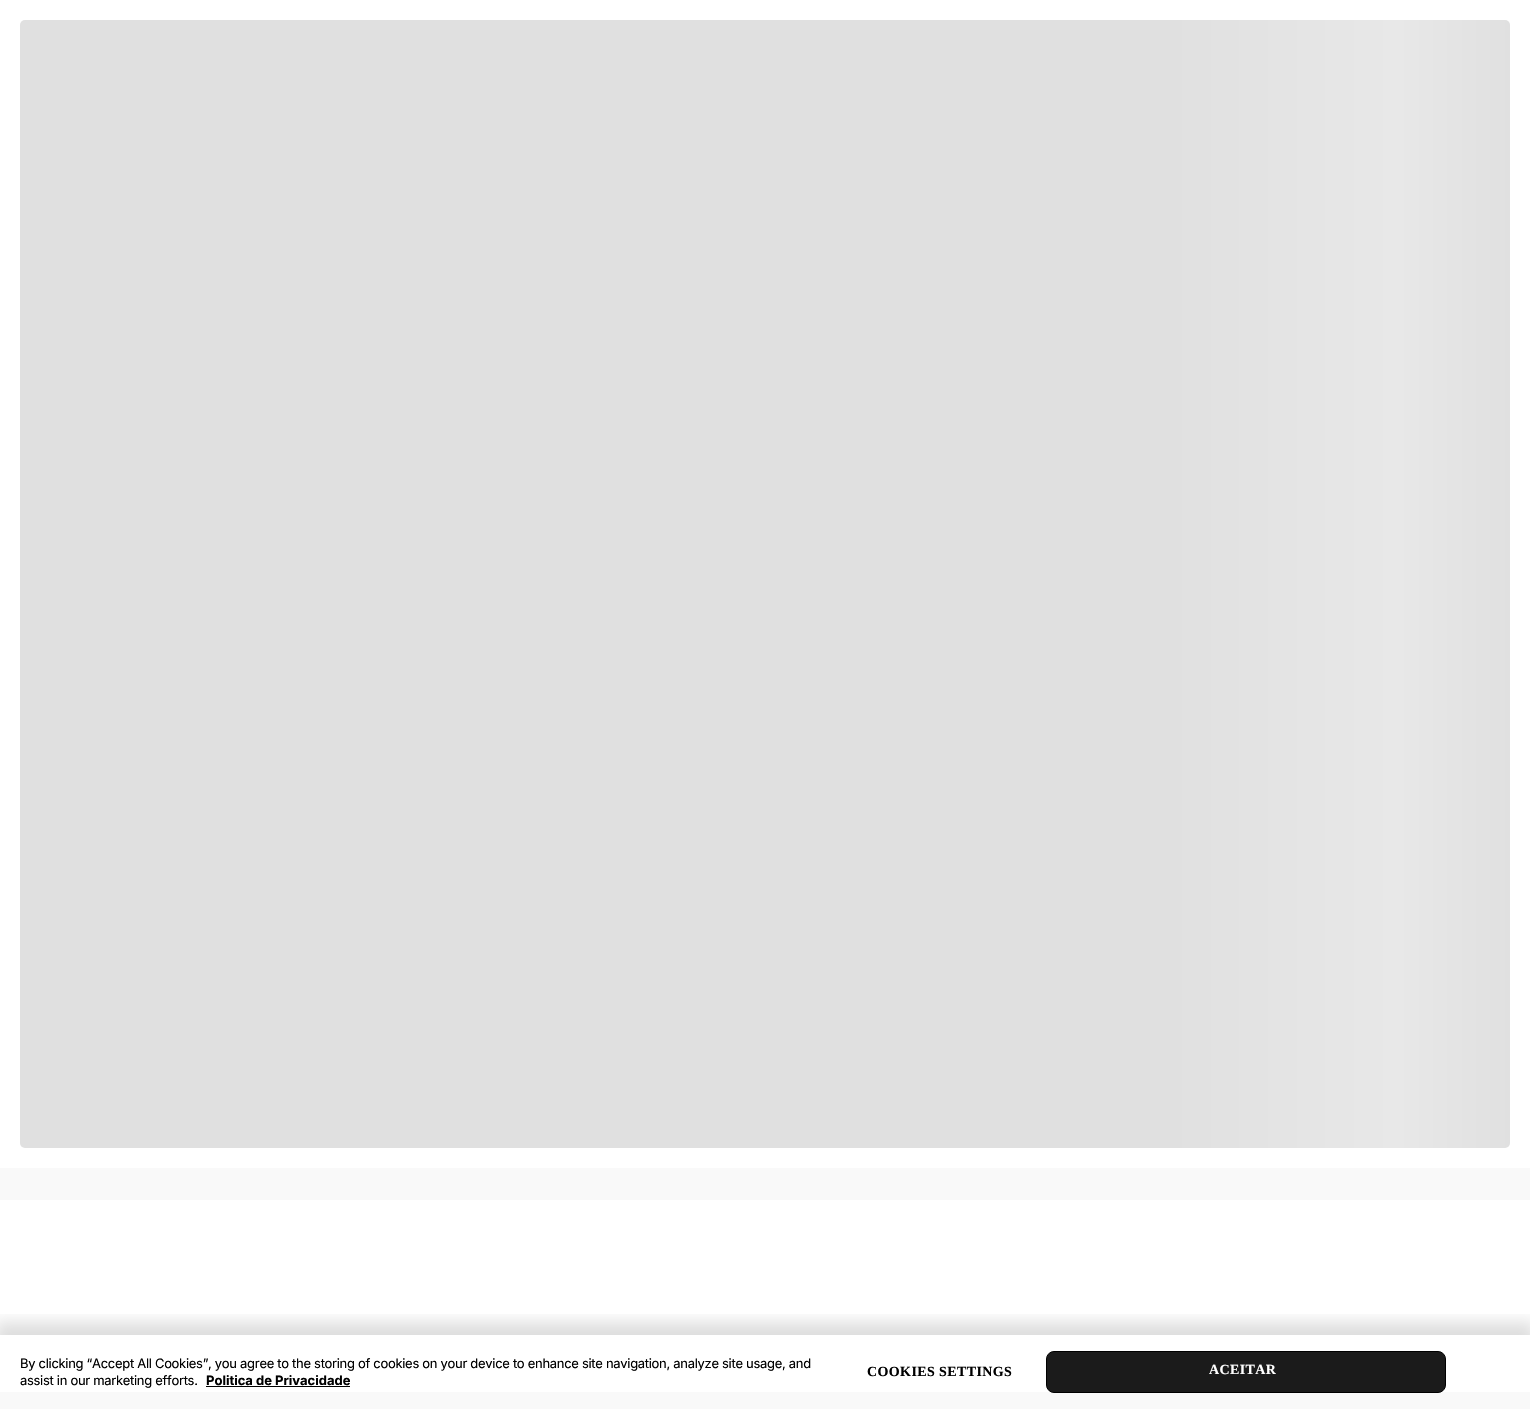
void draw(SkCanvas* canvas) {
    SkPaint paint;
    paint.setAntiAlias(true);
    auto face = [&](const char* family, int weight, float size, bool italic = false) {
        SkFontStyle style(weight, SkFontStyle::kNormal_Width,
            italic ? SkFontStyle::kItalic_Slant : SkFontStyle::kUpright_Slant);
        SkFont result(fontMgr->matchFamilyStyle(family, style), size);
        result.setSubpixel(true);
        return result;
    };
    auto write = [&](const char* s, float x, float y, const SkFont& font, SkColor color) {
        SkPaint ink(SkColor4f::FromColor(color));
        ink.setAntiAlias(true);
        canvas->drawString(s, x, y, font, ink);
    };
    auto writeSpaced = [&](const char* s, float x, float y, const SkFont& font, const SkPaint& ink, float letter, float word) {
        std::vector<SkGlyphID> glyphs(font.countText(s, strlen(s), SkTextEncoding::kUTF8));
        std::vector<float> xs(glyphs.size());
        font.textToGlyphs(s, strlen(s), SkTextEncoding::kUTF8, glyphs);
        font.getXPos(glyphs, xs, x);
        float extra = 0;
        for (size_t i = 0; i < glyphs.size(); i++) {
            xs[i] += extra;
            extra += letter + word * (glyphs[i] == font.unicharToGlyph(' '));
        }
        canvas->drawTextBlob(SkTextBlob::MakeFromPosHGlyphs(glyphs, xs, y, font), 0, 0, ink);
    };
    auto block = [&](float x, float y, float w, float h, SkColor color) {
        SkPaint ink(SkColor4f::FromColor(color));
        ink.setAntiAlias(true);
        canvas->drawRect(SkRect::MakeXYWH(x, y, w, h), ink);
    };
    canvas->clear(SK_ColorWHITE);
    {
        const SkColor colors[] = {SkColorSetRGB(224, 224, 224), SkColorSetRGB(224, 224, 224), SkColorSetRGB(232, 232, 232), SkColorSetRGB(224, 224, 224), SkColorSetRGB(224, 224, 224)};
        const float stops[] = {0, 0.5f, 0.6f, 0.65f, 1};
        const SkPoint ends[] = {{20, 584}, {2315, 584}};
        paint.setShader(SkGradientShader::MakeLinear(ends, colors, stops, 5, SkTileMode::kClamp));
        paint.setAlpha(255);
    }
    canvas->drawRoundRect(SkRect::MakeXYWH(20, 20, 1490, 1128), 5, 5, paint);
    block(0, 1168, 1530, 32, SkColorSetRGB(249, 249, 249));
    block(0, 1392, 1530, 17, SkColorSetRGB(249, 249, 249));
    canvas->save();
    canvas->clipRect(SkRect::MakeXYWH(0, 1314, 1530, 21));
    paint.setShader(nullptr);
    paint.setColor(SkColorSetARGB(33, 0, 0, 0));
    paint.setMaskFilter(SkMaskFilter::MakeBlur(kNormal_SkBlurStyle, 7.5f));
    canvas->drawRect(SkRect::MakeXYWH(-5, 1322, 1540, 84), paint);
    paint.setMaskFilter(nullptr);
    canvas->restore();
    auto kFont1 = face("Inter", 400, 13);
    paint.setColor(SK_ColorBLACK);
    writeSpaced("By clicking “Accept All Cookies”, you agree to the storing of cookies on your device to enhance site navigation, analyze site usage, and", 20, 1368, kFont1, paint, -0.3f, 0);
    writeSpaced("assist in our marketing efforts.", 20, 1385, kFont1, paint, -0.3f, 0);
    auto kFont2 = face("Inter", 700, 13);
    write("Politica de Privacidade", 206, 1385, kFont2, SK_ColorBLACK);
    block(206, 1386, 144, 1, SK_ColorBLACK);
    auto kFont3 = face("Liberation Serif", 700, 14);
    writeSpaced("COOKIES SETTINGS", 867, 1376, kFont3, paint, 0.4f, 0);
    paint.setColor(SkColorSetRGB(27, 27, 27));
    canvas->drawRoundRect(SkRect::MakeXYWH(1046.5f, 1351.5f, 399, 41), 7.5f, 7.5f, paint);
    paint.setStyle(SkPaint::kStroke_Style);
    paint.setStrokeWidth(1);
    paint.setColor(SK_ColorBLACK);
    canvas->drawRoundRect(SkRect::MakeXYWH(1046.5f, 1351.5f, 399, 41), 7.5f, 7.5f, paint);
    paint.setStyle(SkPaint::kFill_Style);
    paint.setColor(SK_ColorWHITE);
    writeSpaced("ACEITAR", 1209, 1374, kFont3, paint, 0.4f, 0);
}
